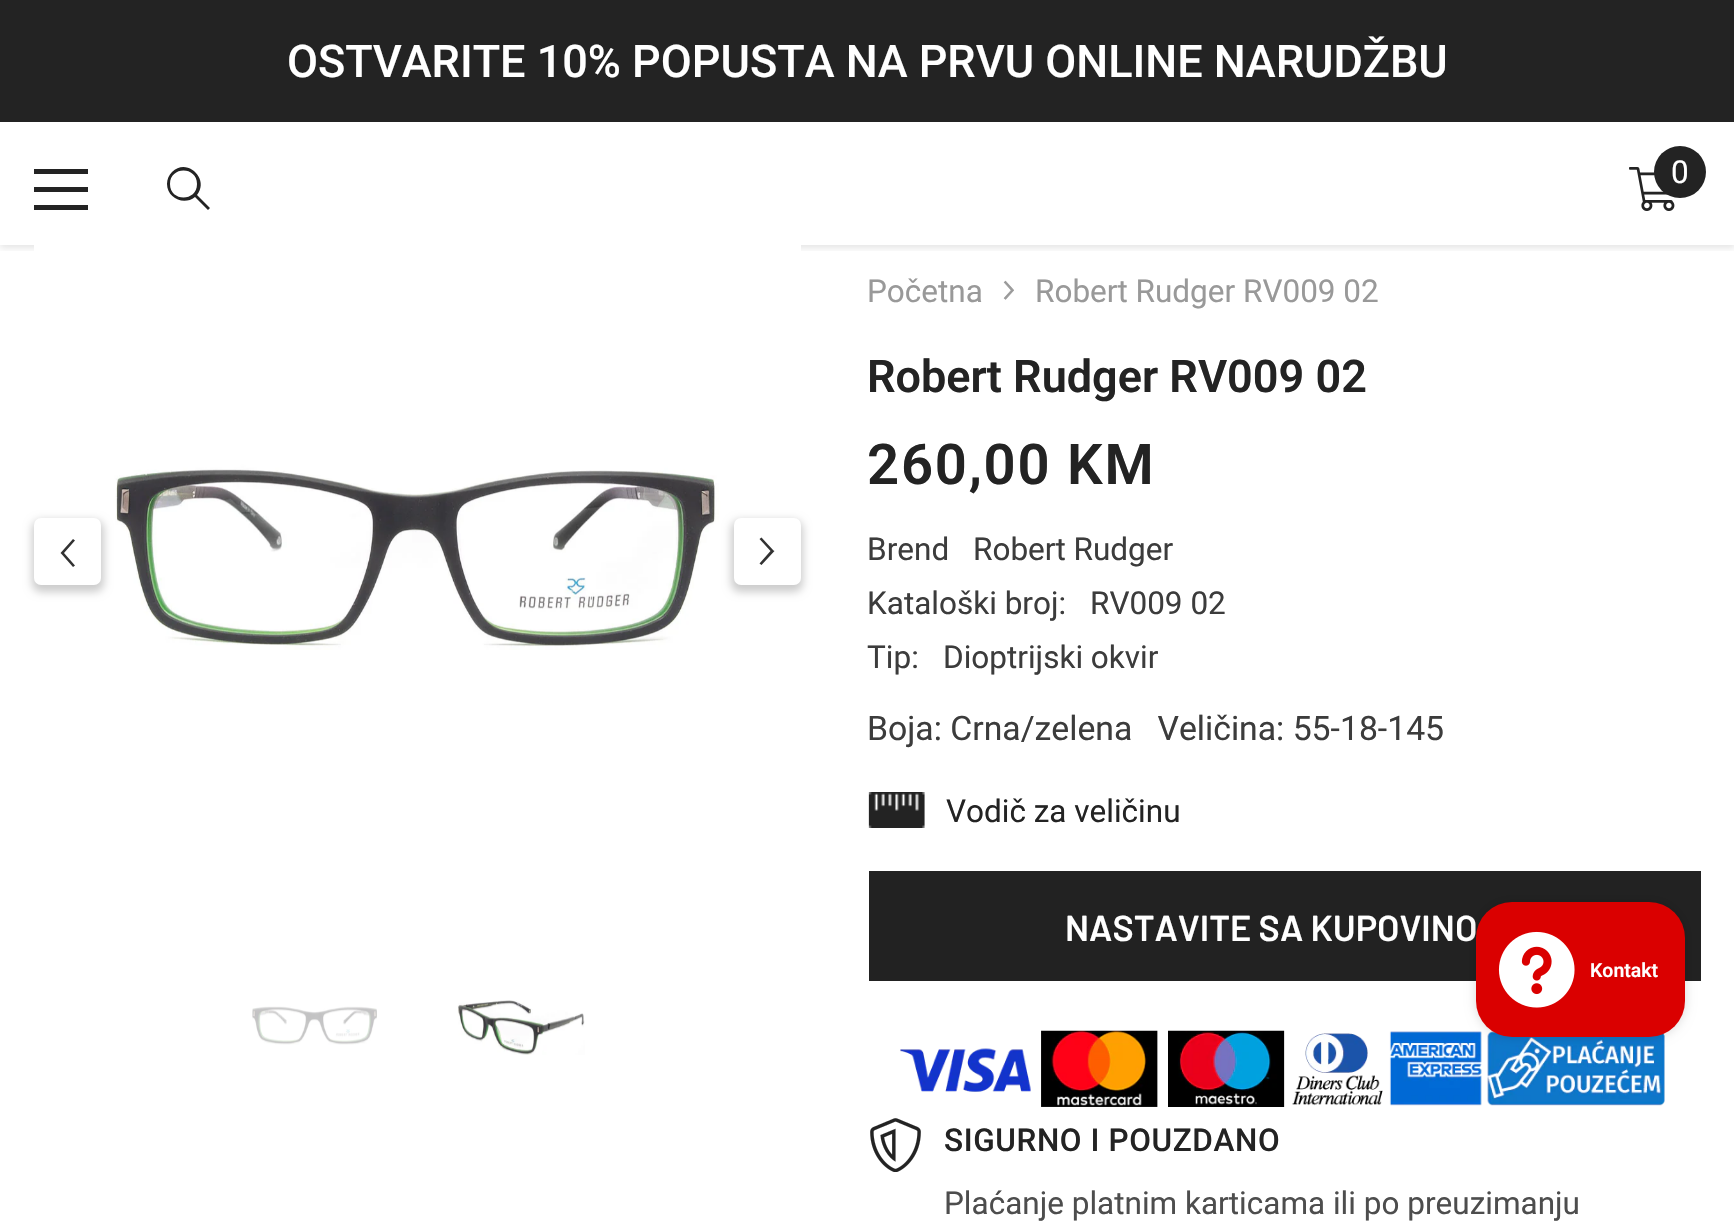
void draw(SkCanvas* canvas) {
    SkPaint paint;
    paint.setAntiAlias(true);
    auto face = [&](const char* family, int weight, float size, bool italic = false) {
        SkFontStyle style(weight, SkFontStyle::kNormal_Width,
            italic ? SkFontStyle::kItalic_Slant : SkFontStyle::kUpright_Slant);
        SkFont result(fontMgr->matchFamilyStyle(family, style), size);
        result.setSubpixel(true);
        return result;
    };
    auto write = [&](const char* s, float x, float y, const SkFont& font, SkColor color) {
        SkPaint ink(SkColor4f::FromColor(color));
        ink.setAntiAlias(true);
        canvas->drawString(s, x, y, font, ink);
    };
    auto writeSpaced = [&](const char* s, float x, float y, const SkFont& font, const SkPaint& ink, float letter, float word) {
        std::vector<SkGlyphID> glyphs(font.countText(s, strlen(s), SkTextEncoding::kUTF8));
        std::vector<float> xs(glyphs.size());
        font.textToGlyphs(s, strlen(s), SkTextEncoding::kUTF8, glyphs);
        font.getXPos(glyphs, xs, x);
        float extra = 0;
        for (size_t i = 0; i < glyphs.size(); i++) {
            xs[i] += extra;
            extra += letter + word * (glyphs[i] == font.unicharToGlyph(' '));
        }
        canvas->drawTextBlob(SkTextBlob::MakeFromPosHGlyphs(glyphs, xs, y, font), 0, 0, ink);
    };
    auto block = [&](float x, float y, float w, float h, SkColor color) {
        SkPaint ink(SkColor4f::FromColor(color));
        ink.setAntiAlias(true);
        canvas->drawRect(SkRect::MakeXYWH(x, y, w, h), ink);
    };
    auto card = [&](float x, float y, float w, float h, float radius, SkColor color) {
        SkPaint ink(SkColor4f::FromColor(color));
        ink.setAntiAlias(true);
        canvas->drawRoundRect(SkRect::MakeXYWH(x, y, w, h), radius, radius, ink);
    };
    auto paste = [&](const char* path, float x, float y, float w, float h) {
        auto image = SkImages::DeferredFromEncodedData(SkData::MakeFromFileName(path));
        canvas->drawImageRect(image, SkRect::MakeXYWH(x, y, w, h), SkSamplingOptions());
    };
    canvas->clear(SK_ColorWHITE);
    block(0, 0, 1734, 122, SkColorSetRGB(35, 35, 35));
    auto kFont1 = face("Roboto", 500, 45);
    write("OSTVARITE 10% POPUSTA NA PRVU ONLINE NARUDŽBU", 287, 77, kFont1, SK_ColorWHITE);
    canvas->save();
    canvas->clipRect(SkRect::MakeXYWH(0, 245, 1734, 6));
    paint.setColor(SkColorSetARGB(26, 0, 0, 0));
    paint.setMaskFilter(SkMaskFilter::MakeBlur(kNormal_SkBlurStyle, 3.5f));
    canvas->drawRect(SkRect::MakeXYWH(0, 124, 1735, 124), paint);
    paint.setMaskFilter(nullptr);
    canvas->restore();
    block(34, 187, 54, 5, SkColorSetRGB(35, 35, 35));
    block(34, 169, 54, 5, SkColorSetRGB(35, 35, 35));
    block(34, 205, 54, 5, SkColorSetRGB(35, 35, 35));
    paint.setColor(SkColorSetRGB(35, 35, 35));
    canvas->drawPath(SkPathBuilder().moveTo(167, 184).cubicTo(167, 198, 184, 206, 195, 197).lineTo(208, 210).lineTo(210, 208).lineTo(197, 195).cubicTo(210, 179, 187, 157, 172, 172).cubicTo(169, 175, 167, 179, 167, 184).close().moveTo(170, 184).cubicTo(170, 166, 197, 166, 197, 184).cubicTo(197, 202, 170, 202, 170, 184).close().detach(), paint);
    paste("pic1.png", 1629, 167, 46, 44);
    canvas->drawCircle(1680, 172, 26, paint);
    auto kFont2 = face("Roboto", 400, 31.5f);
    write("0", 1671, 183, kFont2, SK_ColorWHITE);
    paste("pic2.png", 34, 245, 767, 405);
    paint.setColor(SkColorSetARGB(51, 0, 0, 0));
    paint.setMaskFilter(SkMaskFilter::MakeBlur(kNormal_SkBlurStyle, 4));
    canvas->drawRoundRect(SkRect::MakeXYWH(32, 520, 72, 72), 9, 9, paint);
    paint.setMaskFilter(nullptr);
    card(34, 518, 67, 67, 7, SK_ColorWHITE);
    paint.setColor(SkColorSetRGB(50, 50, 50));
    canvas->drawPath(SkPathBuilder().moveTo(73, 567).lineTo(75, 565.5f).lineTo(64, 553).lineTo(75, 540.5f).lineTo(73, 539).lineTo(60.5f, 553).lineTo(61.5f, 554).close().detach(), paint);
    paint.setColor(SkColorSetARGB(51, 0, 0, 0));
    paint.setMaskFilter(SkMaskFilter::MakeBlur(kNormal_SkBlurStyle, 4));
    canvas->drawRoundRect(SkRect::MakeXYWH(731, 520, 72, 72), 9, 9, paint);
    paint.setMaskFilter(nullptr);
    card(734, 518, 67, 67, 7, SK_ColorWHITE);
    paint.setColor(SkColorSetRGB(50, 50, 50));
    canvas->drawPath(SkPathBuilder().moveTo(761.5f, 537.5f).lineTo(759.5f, 539).lineTo(770.5f, 551).lineTo(759.5f, 563.5f).lineTo(761.5f, 565).lineTo(774.5f, 551).lineTo(773.5f, 550.5f).close().detach(), paint);
    paste("pic3.png", 252, 1006, 125, 39);
    paste("pic4.png", 457, 1000, 128, 55);
    write("Početna", 867, 302, kFont2, SkColorSetRGB(153, 153, 153));
    paste("pic5.png", 1003, 280, 11, 20);
    write("Robert Rudger RV009 02", 1035, 302, kFont2, SkColorSetRGB(153, 153, 153));
    auto kFont3 = face("Roboto", 600, 45);
    write("Robert Rudger RV009 02", 867, 392, kFont3, SkColorSetRGB(35, 35, 35));
    auto kFont4 = face("Roboto", 600, 56.25f);
    paint.setColor(SkColorSetRGB(35, 35, 35));
    writeSpaced("260,00 KM", 867, 484, kFont4, paint, 1.75f, 0);
    write("Brend", 867, 560, kFont2, SkColorSetRGB(60, 60, 60));
    write("Robert Rudger", 973, 560, kFont2, SkColorSetRGB(60, 60, 60));
    write("Kataloški broj:", 867, 614, kFont2, SkColorSetRGB(60, 60, 60));
    write("RV009 02", 1090, 614, kFont2, SkColorSetRGB(60, 60, 60));
    write("Tip:", 867, 668, kFont2, SkColorSetRGB(60, 60, 60));
    write("Dioptrijski okvir", 943, 668, kFont2, SkColorSetRGB(60, 60, 60));
    auto kFont5 = face("Roboto", 400, 33.75f);
    write("Boja: Crna/zelena   Veličina: 55-18-145", 867, 740, kFont5, SkColorSetRGB(60, 60, 60));
    paste("pic6.png", 868, 792, 57, 36);
    write("Vodič za veličinu", 946, 822, kFont2, SkColorSetRGB(35, 35, 35));
    block(869, 871, 832, 110, SkColorSetRGB(34, 34, 34));
    auto kFont6 = face("Barlow", 600, 36);
    write("NASTAVITE SA KUPOVINO", 1065, 941, kFont6, SK_ColorWHITE);
    paste("pic7.png", 900, 1030, 765, 77);
    paste("pic8.png", 870, 1118, 51, 54);
    auto kFont7 = face("Roboto", 500, 31.5f);
    writeSpaced("SIGURNO I POUZDANO", 944, 1151, kFont7, paint, 0.6f, 0);
    write("Plaćanje platnim karticama ili po preuzimanju", 944, 1214, kFont2, SkColorSetRGB(77, 77, 77));
    paint.setColor(SkColorSetARGB(38, 0, 0, 0));
    paint.setMaskFilter(SkMaskFilter::MakeBlur(kNormal_SkBlurStyle, 5.5f));
    canvas->drawRoundRect(SkRect::MakeXYWH(1476, 902, 209, 135), 36, 36, paint);
    paint.setMaskFilter(nullptr);
    card(1476, 902, 209, 135, 36, SkColorSetRGB(218, 0, 0));
    paste("pic9.png", 1498, 931, 77, 77);
    auto kFont8 = face("Roboto", 600, 19.5f);
    write("Kontakt", 1590, 977, kFont8, SK_ColorWHITE);
}
